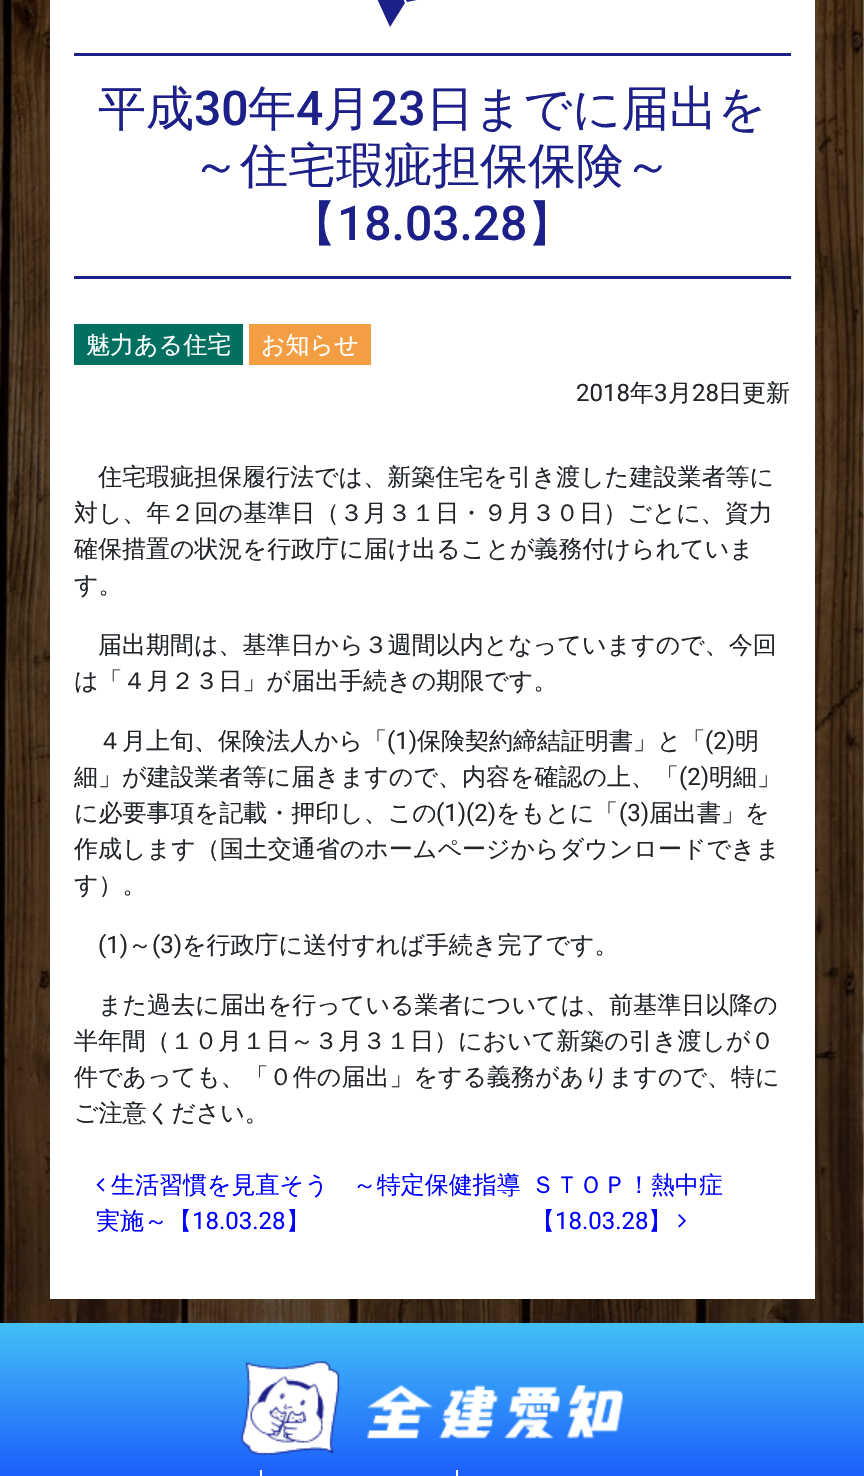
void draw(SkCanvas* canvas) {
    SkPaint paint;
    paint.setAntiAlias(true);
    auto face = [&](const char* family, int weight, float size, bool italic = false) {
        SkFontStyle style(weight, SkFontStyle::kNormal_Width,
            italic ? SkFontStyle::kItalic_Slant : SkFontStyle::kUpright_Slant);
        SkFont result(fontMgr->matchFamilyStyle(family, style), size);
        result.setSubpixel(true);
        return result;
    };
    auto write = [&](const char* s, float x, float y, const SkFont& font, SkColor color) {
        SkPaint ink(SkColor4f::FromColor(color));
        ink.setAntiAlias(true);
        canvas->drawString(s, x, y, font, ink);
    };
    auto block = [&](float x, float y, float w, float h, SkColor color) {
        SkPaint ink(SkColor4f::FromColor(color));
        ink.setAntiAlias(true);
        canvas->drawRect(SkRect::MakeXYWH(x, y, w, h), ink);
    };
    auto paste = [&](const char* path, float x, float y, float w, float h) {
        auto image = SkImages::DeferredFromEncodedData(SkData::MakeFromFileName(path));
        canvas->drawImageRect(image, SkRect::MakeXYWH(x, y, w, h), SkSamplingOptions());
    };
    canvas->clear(SK_ColorWHITE);
    paste("pic1.png", 0, 0, 864, 1323);
    block(50, 0, 765, 1299, SK_ColorWHITE);
    paint.setColor(SkColorSetRGB(29, 32, 136));
    canvas->drawPath(SkPathBuilder().moveTo(496, -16).lineTo(407, 2).lineTo(398, -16).lineTo(469, -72).close().moveTo(390, 27).lineTo(405, 3).lineTo(396, -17).lineTo(368, -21).close().detach(), paint);
    block(74, 53, 717, 3, SkColorSetRGB(29, 32, 136));
    block(74, 276, 717, 3, SkColorSetRGB(29, 32, 136));
    auto kFont1 = face("WenQuanYi Zen Hei", 500, 48);
    write("平成", 98, 125, kFont1, SkColorSetRGB(29, 32, 136));
    auto kFont2 = face("Roboto", 500, 48);
    write("30", 194, 125, kFont2, SkColorSetRGB(29, 32, 136));
    write("年", 248, 125, kFont1, SkColorSetRGB(29, 32, 136));
    write("4", 296, 125, kFont2, SkColorSetRGB(29, 32, 136));
    write("月", 323, 125, kFont1, SkColorSetRGB(29, 32, 136));
    write("23", 371, 125, kFont2, SkColorSetRGB(29, 32, 136));
    write("日までに届出を", 426, 125, kFont1, SkColorSetRGB(29, 32, 136));
    write("～住宅瑕疵担保保険～", 192, 182, kFont1, SkColorSetRGB(29, 32, 136));
    write("【", 289, 240, kFont1, SkColorSetRGB(29, 32, 136));
    write("18.03.28", 337, 240, kFont2, SkColorSetRGB(29, 32, 136));
    write("】", 527, 240, kFont1, SkColorSetRGB(29, 32, 136));
    block(74, 324, 169, 41, SkColorSetRGB(1, 112, 97));
    auto kFont3 = face("WenQuanYi Zen Hei", 500, 24);
    write("魅力ある住宅", 86, 353, kFont3, SK_ColorWHITE);
    block(249, 324, 122, 41, SkColorSetRGB(243, 158, 67));
    write("お知らせ", 261, 353, kFont3, SK_ColorWHITE);
    auto kFont4 = face("Roboto", 400, 24);
    write("2018", 576, 401, kFont4, SkColorSetRGB(33, 37, 41));
    write("年", 630, 401, kFont3, SkColorSetRGB(33, 37, 41));
    write("3", 654, 401, kFont4, SkColorSetRGB(33, 37, 41));
    write("月", 668, 401, kFont3, SkColorSetRGB(33, 37, 41));
    write("28", 692, 401, kFont4, SkColorSetRGB(33, 37, 41));
    write("日更新", 718, 401, kFont3, SkColorSetRGB(33, 37, 41));
    write("住宅瑕疵担保履行法では、新築住宅を引き渡した建設業者等に", 98, 485, kFont3, SkColorSetRGB(33, 37, 41));
    write("対し、年２回の基準日（３月３１日・９月３０日）ごとに、資力", 74, 521, kFont3, SkColorSetRGB(33, 37, 41));
    write("確保措置の状況を行政庁に届け出ることが義務付けられていま", 74, 557, kFont3, SkColorSetRGB(33, 37, 41));
    write("す。", 74, 593, kFont3, SkColorSetRGB(33, 37, 41));
    write("届出期間は、基準日から３週間以内となっていますので、今回", 98, 653, kFont3, SkColorSetRGB(33, 37, 41));
    write("は「４月２３日」が届出手続きの期限です。", 74, 689, kFont3, SkColorSetRGB(33, 37, 41));
    write("４月上旬、保険法人から「", 98, 749, kFont3, SkColorSetRGB(33, 37, 41));
    write("(1)", 387, 749, kFont4, SkColorSetRGB(33, 37, 41));
    write("保険契約締結証明書」と「", 417, 749, kFont3, SkColorSetRGB(33, 37, 41));
    write("(2)", 705, 749, kFont4, SkColorSetRGB(33, 37, 41));
    write("明", 735, 749, kFont3, SkColorSetRGB(33, 37, 41));
    write("細」が建設業者等に届きますので、内容を確認の上、「", 74, 785, kFont3, SkColorSetRGB(33, 37, 41));
    write("(2)", 679, 785, kFont4, SkColorSetRGB(33, 37, 41));
    write("明細」", 709, 785, kFont3, SkColorSetRGB(33, 37, 41));
    write("に必要事項を記載・押印し、この", 74, 821, kFont3, SkColorSetRGB(33, 37, 41));
    write("(1)(2)", 436, 821, kFont4, SkColorSetRGB(33, 37, 41));
    write("をもとに「", 496, 821, kFont3, SkColorSetRGB(33, 37, 41));
    write("(3)", 619, 821, kFont4, SkColorSetRGB(33, 37, 41));
    write("届出書」を", 649, 821, kFont3, SkColorSetRGB(33, 37, 41));
    write("作成します（国土交通省のホームページからダウンロードできま", 74, 857, kFont3, SkColorSetRGB(33, 37, 41));
    write("す）。", 74, 893, kFont3, SkColorSetRGB(33, 37, 41));
    write("(1)", 98, 953, kFont4, SkColorSetRGB(33, 37, 41));
    write("～", 128, 953, kFont3, SkColorSetRGB(33, 37, 41));
    write("(3)", 152, 953, kFont4, SkColorSetRGB(33, 37, 41));
    write("を行政庁に送付すれば手続き完了です。", 182, 953, kFont3, SkColorSetRGB(33, 37, 41));
    write("また過去に届出を行っている業者については、前基準日以降の", 98, 1013, kFont3, SkColorSetRGB(33, 37, 41));
    write("半年間（１０月１日～３月３１日）において新築の引き渡しが０", 74, 1049, kFont3, SkColorSetRGB(33, 37, 41));
    write("件であっても、「０件の届出」をする義務がありますので、特に", 74, 1085, kFont3, SkColorSetRGB(33, 37, 41));
    write("ご注意ください。", 74, 1121, kFont3, SkColorSetRGB(33, 37, 41));
    paste("pic2.png", 96, 1178, 9, 14);
    write("生活習慣を見直そう　～特定保健指導", 111, 1193, kFont3, SkColorSetRGB(0, 0, 255));
    write("実施～【", 96, 1229, kFont3, SkColorSetRGB(0, 0, 255));
    write("18.03.28", 192, 1229, kFont4, SkColorSetRGB(0, 0, 255));
    write("】", 286, 1229, kFont3, SkColorSetRGB(0, 0, 255));
    write("ＳＴＯＰ！熱中症", 531, 1193, kFont3, SkColorSetRGB(0, 0, 255));
    write("【", 531, 1229, kFont3, SkColorSetRGB(0, 0, 255));
    write("18.03.28", 555, 1229, kFont4, SkColorSetRGB(0, 0, 255));
    write("】", 648, 1229, kFont3, SkColorSetRGB(0, 0, 255));
    paste("pic3.png", 678, 1214, 8, 14);
    {
        const SkColor colors[] = {SkColorSetRGB(67, 191, 247), SkColorSetRGB(2, 33, 254)};
        const float stops[] = {0, 1};
        const SkPoint ends[] = {{432, 1323}, {432, 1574}};
        paint.setShader(SkGradientShader::MakeLinear(ends, colors, stops, 2, SkTileMode::kClamp));
        paint.setAlpha(255);
    }
    canvas->drawRect(SkRect::MakeXYWH(0, 1323, 864, 153), paint);
    paste("pic4.png", 241, 1361, 382, 94);
    block(260, 1470, 2, 6, SK_ColorWHITE);
    block(456, 1470, 2, 6, SK_ColorWHITE);
}
